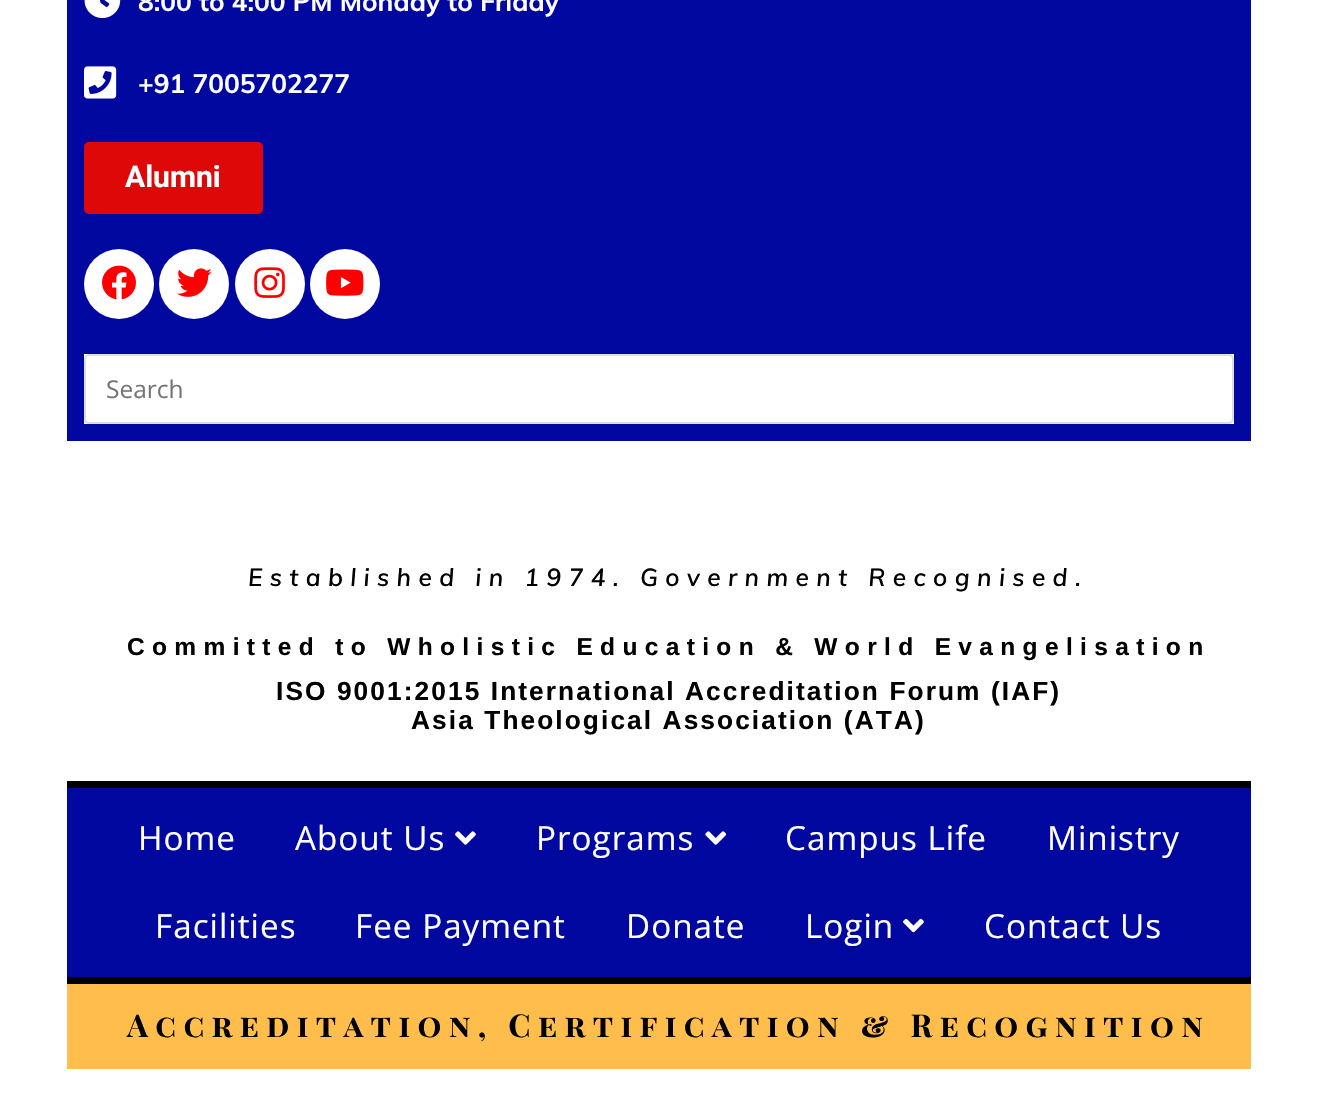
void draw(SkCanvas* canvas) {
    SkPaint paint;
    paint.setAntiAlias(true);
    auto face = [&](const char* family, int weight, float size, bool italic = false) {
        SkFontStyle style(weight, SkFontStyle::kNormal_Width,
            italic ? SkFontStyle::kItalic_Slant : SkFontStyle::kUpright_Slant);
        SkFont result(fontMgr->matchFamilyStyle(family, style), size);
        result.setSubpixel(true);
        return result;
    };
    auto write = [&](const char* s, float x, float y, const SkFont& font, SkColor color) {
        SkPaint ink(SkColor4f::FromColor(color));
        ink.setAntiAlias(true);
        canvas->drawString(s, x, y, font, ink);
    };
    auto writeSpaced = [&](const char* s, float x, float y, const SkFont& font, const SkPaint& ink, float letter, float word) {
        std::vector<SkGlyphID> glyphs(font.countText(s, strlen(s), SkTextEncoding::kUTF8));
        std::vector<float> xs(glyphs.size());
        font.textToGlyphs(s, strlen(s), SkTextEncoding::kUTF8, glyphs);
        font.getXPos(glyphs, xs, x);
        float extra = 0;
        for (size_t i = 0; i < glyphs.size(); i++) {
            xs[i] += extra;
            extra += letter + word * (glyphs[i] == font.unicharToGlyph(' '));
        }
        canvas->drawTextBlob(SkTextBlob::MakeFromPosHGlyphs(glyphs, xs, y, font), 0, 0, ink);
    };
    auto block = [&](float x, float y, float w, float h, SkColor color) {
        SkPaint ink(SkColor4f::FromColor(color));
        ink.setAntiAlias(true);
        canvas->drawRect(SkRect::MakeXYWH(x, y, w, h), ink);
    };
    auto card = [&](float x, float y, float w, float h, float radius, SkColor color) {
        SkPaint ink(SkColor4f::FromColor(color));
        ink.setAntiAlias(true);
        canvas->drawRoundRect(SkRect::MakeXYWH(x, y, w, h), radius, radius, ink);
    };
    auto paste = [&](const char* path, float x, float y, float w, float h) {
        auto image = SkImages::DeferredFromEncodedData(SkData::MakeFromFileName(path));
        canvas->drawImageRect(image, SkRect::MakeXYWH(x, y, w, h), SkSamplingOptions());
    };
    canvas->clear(SK_ColorWHITE);
    block(67, 0, 1184, 441, SkColorSetRGB(0, 8, 160));
    paste("pic1.png", 84, 0, 37, 18);
    auto kFont1 = face("Muli", 700, 26.25f);
    write("8:00 to 4:00 PM Monday to Friday", 138, 11, kFont1, SK_ColorWHITE);
    paste("pic2.png", 84, 66, 33, 33);
    write("+91 7005702277", 138, 93, kFont1, SK_ColorWHITE);
    card(84, 142, 179, 72, 5, SkColorSetRGB(222, 8, 8));
    auto kFont2 = face("Roboto", 700, 30);
    write("Alumni", 125, 187, kFont2, SK_ColorWHITE);
    paint.setColor(SK_ColorWHITE);
    canvas->drawCircle(119, 284, 35, paint);
    paste("pic3.png", 102, 265, 34, 35);
    canvas->drawCircle(194, 284, 35, paint);
    paste("pic4.png", 177, 268, 35, 29);
    canvas->drawCircle(270, 284, 35, paint);
    paste("pic5.png", 254, 267, 31, 31);
    canvas->drawCircle(345, 284, 35, paint);
    paste("pic6.png", 326, 269, 38, 27);
    block(84, 354, 1150, 70, SK_ColorWHITE);
    paint.setStyle(SkPaint::kStroke_Style);
    paint.setStrokeWidth(2);
    paint.setColor(SkColorSetRGB(221, 221, 221));
    canvas->drawRoundRect(SkRect::MakeXYWH(85, 355, 1148, 68), 4, 4, paint);
    auto kFont3 = face("Open Sans", 400, 24.5f);
    write("Search", 106, 398, kFont3, SkColorSetRGB(117, 117, 117));
    auto kFont4 = face("Muli", 600, 24.5f, true);
    paint.setStyle(SkPaint::kFill_Style);
    paint.setColor(SK_ColorBLACK);
    writeSpaced("Established in 1974. Government Recognised.", 248, 586, kFont4, paint, 7.35f, 0);
    auto kFont5 = face("Liberation Sans", 700, 24.5f);
    writeSpaced("Committed to Wholistic Education & World Evangelisation", 127, 655, kFont5, paint, 7.35f, 0);
    auto kFont6 = face("Liberation Sans", 700, 26.25f);
    writeSpaced("ISO 9001:2015 International Accreditation Forum (IAF)", 276, 700, kFont6, paint, 2.1f, 0);
    writeSpaced("Asia Theological Association (ATA)", 411, 729, kFont6, paint, 2.1f, 0);
    block(67, 788, 1184, 189, SkColorSetRGB(0, 8, 160));
    block(67, 781, 1184, 7, SK_ColorBLACK);
    block(67, 977, 1184, 7, SK_ColorBLACK);
    auto kFont7 = face("Open Sans", 400, 33.25f);
    paint.setColor(SK_ColorWHITE);
    writeSpaced("Home", 138, 850, kFont7, paint, 1, 0);
    writeSpaced("About Us", 295, 850, kFont7, paint, 1, 0);
    paste("pic7.png", 455, 831, 21, 14);
    writeSpaced("Programs", 536, 850, kFont7, paint, 1, 0);
    paste("pic8.png", 705, 831, 22, 14);
    writeSpaced("Campus Life", 785, 850, kFont7, paint, 1, 0);
    writeSpaced("Ministry", 1047, 850, kFont7, paint, 1, 0);
    writeSpaced("Facilities", 155, 938, kFont7, paint, 1, 0);
    writeSpaced("Fee Payment", 355, 938, kFont7, paint, 1, 0);
    writeSpaced("Donate", 626, 938, kFont7, paint, 1, 0);
    writeSpaced("Login", 805, 938, kFont7, paint, 1, 0);
    paste("pic9.png", 903, 918, 21, 15);
    writeSpaced("Contact Us", 984, 938, kFont7, paint, 1, 0);
    block(67, 984, 1184, 85, SkColorSetRGB(255, 190, 76));
    auto kFont8 = face("Playfair Display SC", 700, 31.5f);
    paint.setColor(SK_ColorBLACK);
    writeSpaced("Accreditation, Certification & Recognition", 127, 1037, kFont8, paint, 7.35f, 0);
}
